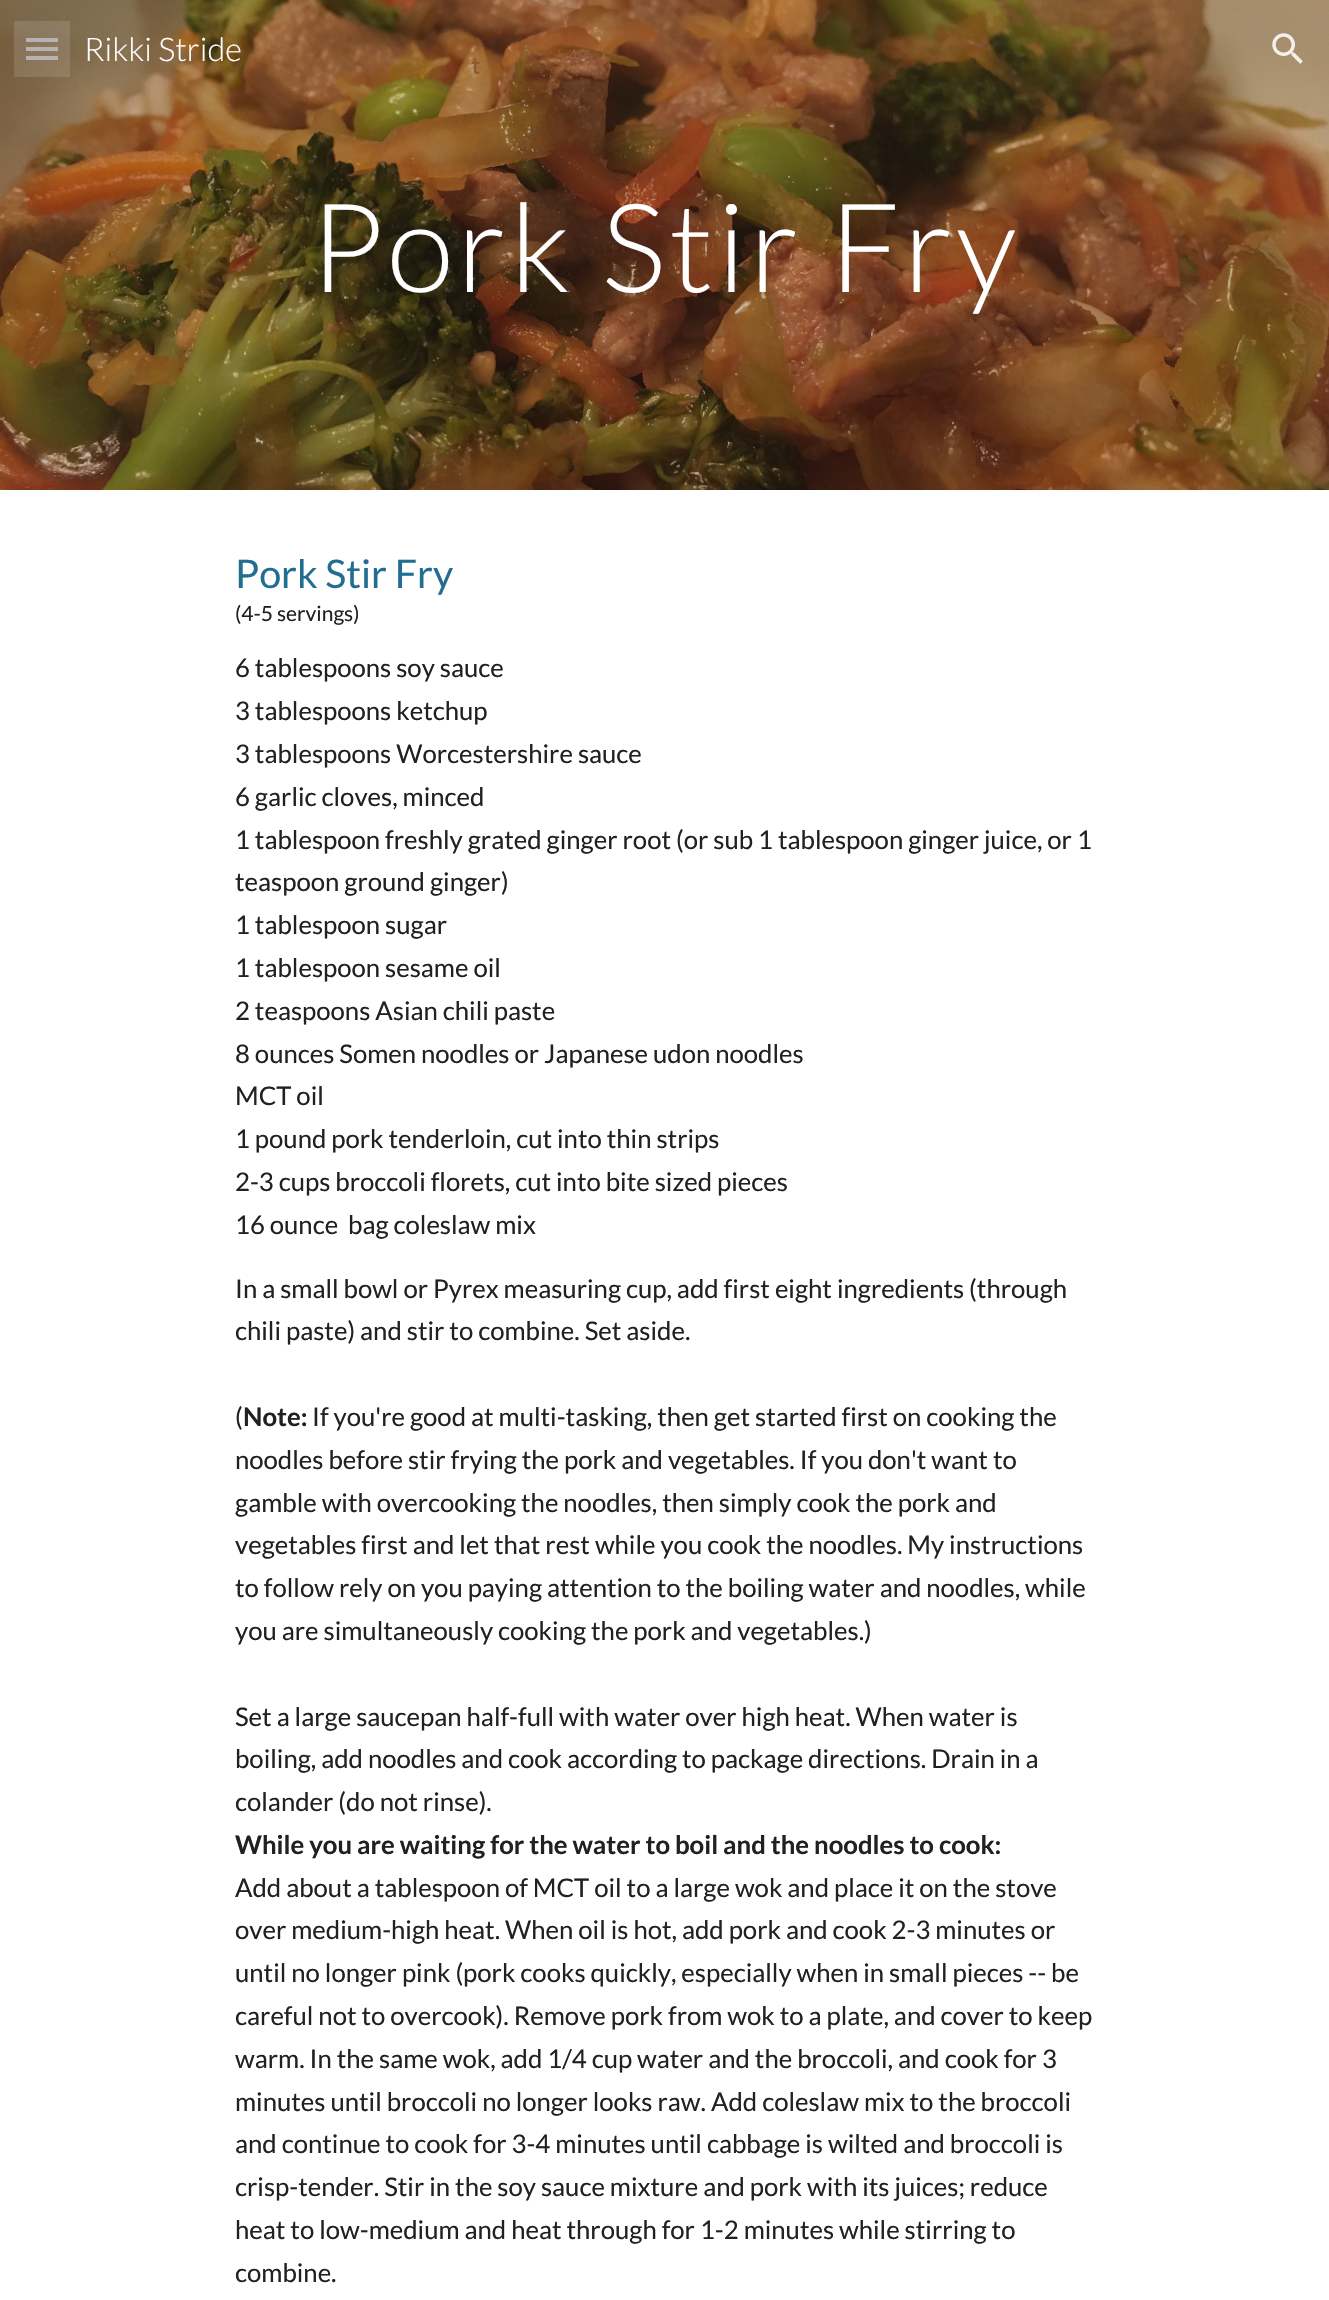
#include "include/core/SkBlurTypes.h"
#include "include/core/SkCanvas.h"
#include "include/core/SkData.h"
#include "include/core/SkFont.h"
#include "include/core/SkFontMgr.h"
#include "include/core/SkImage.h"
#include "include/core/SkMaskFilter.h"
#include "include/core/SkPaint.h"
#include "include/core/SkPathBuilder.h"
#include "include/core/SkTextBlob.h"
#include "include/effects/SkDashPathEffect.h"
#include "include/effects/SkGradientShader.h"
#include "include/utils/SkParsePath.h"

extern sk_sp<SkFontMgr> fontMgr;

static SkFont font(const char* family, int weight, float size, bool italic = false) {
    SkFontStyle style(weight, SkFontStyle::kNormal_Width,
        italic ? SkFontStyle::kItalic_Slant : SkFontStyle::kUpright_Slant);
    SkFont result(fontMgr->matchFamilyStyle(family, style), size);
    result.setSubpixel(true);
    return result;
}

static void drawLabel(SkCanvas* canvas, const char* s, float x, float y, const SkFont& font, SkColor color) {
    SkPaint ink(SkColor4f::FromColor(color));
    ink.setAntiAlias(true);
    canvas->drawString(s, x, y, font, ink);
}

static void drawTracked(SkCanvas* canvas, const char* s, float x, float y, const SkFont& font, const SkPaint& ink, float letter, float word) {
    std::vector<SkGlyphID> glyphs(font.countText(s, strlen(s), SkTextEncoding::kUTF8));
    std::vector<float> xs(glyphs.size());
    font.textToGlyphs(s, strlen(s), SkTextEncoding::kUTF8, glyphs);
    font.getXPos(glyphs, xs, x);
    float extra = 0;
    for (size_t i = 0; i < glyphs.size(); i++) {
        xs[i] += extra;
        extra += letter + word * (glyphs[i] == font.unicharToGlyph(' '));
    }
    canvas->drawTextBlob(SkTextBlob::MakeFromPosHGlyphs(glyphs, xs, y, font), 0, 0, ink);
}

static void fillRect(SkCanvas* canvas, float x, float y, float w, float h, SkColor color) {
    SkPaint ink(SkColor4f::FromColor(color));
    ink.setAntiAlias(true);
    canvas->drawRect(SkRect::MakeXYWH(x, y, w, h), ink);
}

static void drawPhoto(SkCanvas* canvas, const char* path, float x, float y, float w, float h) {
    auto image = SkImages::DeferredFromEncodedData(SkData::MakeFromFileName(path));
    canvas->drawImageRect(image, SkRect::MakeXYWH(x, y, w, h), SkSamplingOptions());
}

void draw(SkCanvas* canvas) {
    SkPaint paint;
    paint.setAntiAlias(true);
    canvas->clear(0xFFFFFFFF);
    drawPhoto(canvas, "assets/img2.png", 0, 0, 1329, 490);
    fillRect(canvas, 26, 38, 32, 4, 0xE0B2B2B2);
    fillRect(canvas, 26, 47, 32, 4, 0xE0B2B2B2);
    fillRect(canvas, 26, 56, 32, 4, 0xE0B2B2B2);
    fillRect(canvas, 14, 21, 56, 56, 0x1FFFFFFF);
    SkFont font1 = font("Lato", 300, 32.5f);
    drawLabel(canvas, "Rikki Stride", 84, 61, font1, 0xFFFFFFFF);
    drawPhoto(canvas, "assets/img1.png", 1272, 33, 31, 31);
    SkFont font2 = font("Lato", 300, 123.5f);
    paint.setColor(0xFFFFFFFF);
    drawTracked(canvas, "Pork Stir Fry", 310, 292, font2, paint, 3.5f, 0);
    SkFont font3 = font("Lato", 400, 39.5f);
    drawLabel(canvas, "Pork Stir Fry", 235, 588, font3, 0xFF226E93);
    SkFont font4 = font("Lato", 400, 21);
    drawLabel(canvas, "(4-5 servings)", 235, 621, font4, 0xFF212121);
    SkFont font5 = font("Lato", 400, 25.7f);
    drawLabel(canvas, "6 tablespoons soy sauce", 235, 677, font5, 0xFF212121);
    drawLabel(canvas, "3 tablespoons ketchup", 235, 720, font5, 0xFF212121);
    drawLabel(canvas, "3 tablespoons Worcestershire sauce", 235, 763, font5, 0xFF212121);
    drawLabel(canvas, "6 garlic cloves, minced", 235, 806, font5, 0xFF212121);
    drawLabel(canvas, "1 tablespoon freshly grated ginger root (or sub 1 tablespoon ginger juice, or 1", 235, 849, font5, 0xFF212121);
    drawLabel(canvas, "teaspoon ground ginger)", 235, 891, font5, 0xFF212121);
    drawLabel(canvas, "1 tablespoon sugar", 235, 934, font5, 0xFF212121);
    drawLabel(canvas, "1 tablespoon sesame oil", 235, 977, font5, 0xFF212121);
    drawLabel(canvas, "2 teaspoons Asian chili paste", 235, 1020, font5, 0xFF212121);
    drawLabel(canvas, "8 ounces Somen noodles or Japanese udon noodles", 235, 1063, font5, 0xFF212121);
    drawLabel(canvas, "MCT oil", 235, 1105, font5, 0xFF212121);
    drawLabel(canvas, "1 pound pork tenderloin, cut into thin strips", 235, 1148, font5, 0xFF212121);
    drawLabel(canvas, "2-3 cups broccoli florets, cut into bite sized pieces", 235, 1191, font5, 0xFF212121);
    drawLabel(canvas, "16 ounce  bag coleslaw mix", 235, 1234, font5, 0xFF212121);
    drawLabel(canvas, "In a small bowl or Pyrex measuring cup, add first eight ingredients (through", 235, 1298, font5, 0xFF212121);
    drawLabel(canvas, "chili paste) and stir to combine. Set aside.", 235, 1340, font5, 0xFF212121);
    drawLabel(canvas, "(", 235, 1426, font5, 0xFF212121);
    SkFont font6 = font("Lato", 700, 25.7f);
    drawLabel(canvas, "Note:", 243, 1426, font6, 0xFF212121);
    drawLabel(canvas, "If you're good at multi-tasking, then get started first on cooking the", 312, 1426, font5, 0xFF212121);
    drawLabel(canvas, "noodles before stir frying the pork and vegetables. If you don't want to", 235, 1469, font5, 0xFF212121);
    drawLabel(canvas, "gamble with overcooking the noodles, then simply cook the pork and", 235, 1512, font5, 0xFF212121);
    drawLabel(canvas, "vegetables first and let that rest while you cook the noodles. My instructions", 235, 1554, font5, 0xFF212121);
    drawLabel(canvas, "to follow rely on you paying attention to the boiling water and noodles, while", 235, 1597, font5, 0xFF212121);
    drawLabel(canvas, "you are simultaneously cooking the pork and vegetables.)", 235, 1640, font5, 0xFF212121);
    drawLabel(canvas, "Set a large saucepan half-full with water over high heat. When water is", 235, 1726, font5, 0xFF212121);
    drawLabel(canvas, "boiling, add noodles and cook according to package directions. Drain in a", 235, 1768, font5, 0xFF212121);
    drawLabel(canvas, "colander (do not rinse).", 235, 1811, font5, 0xFF212121);
    drawLabel(canvas, "While you are waiting for the water to boil and the noodles to cook:", 235, 1854, font6, 0xFF212121);
    drawLabel(canvas, "Add about a tablespoon of MCT oil to a large wok and place it on the stove", 235, 1897, font5, 0xFF212121);
    drawLabel(canvas, "over medium-high heat. When oil is hot, add pork and cook 2-3 minutes or", 235, 1939, font5, 0xFF212121);
    drawLabel(canvas, "until no longer pink (pork cooks quickly, especially when in small pieces -- be", 235, 1982, font5, 0xFF212121);
    drawLabel(canvas, "careful not to overcook). Remove pork from wok to a plate, and cover to keep", 235, 2025, font5, 0xFF212121);
    drawLabel(canvas, "warm. In the same wok, add 1/4 cup water and the broccoli, and cook for 3", 235, 2068, font5, 0xFF212121);
    drawLabel(canvas, "minutes until broccoli no longer looks raw. Add coleslaw mix to the broccoli", 235, 2111, font5, 0xFF212121);
    drawLabel(canvas, "and continue to cook for 3-4 minutes until cabbage is wilted and broccoli is", 235, 2153, font5, 0xFF212121);
    drawLabel(canvas, "crisp-tender. Stir in the soy sauce mixture and pork with its juices; reduce", 235, 2196, font5, 0xFF212121);
    drawLabel(canvas, "heat to low-medium and heat through for 1-2 minutes while stirring to", 235, 2239, font5, 0xFF212121);
    drawLabel(canvas, "combine.", 235, 2282, font5, 0xFF212121);
    SkFont font7 = font("Google Sans", 500, 24);
    drawLabel(canvas, "t", 471, 74, font7, 0xFF8F5B2F);
}
